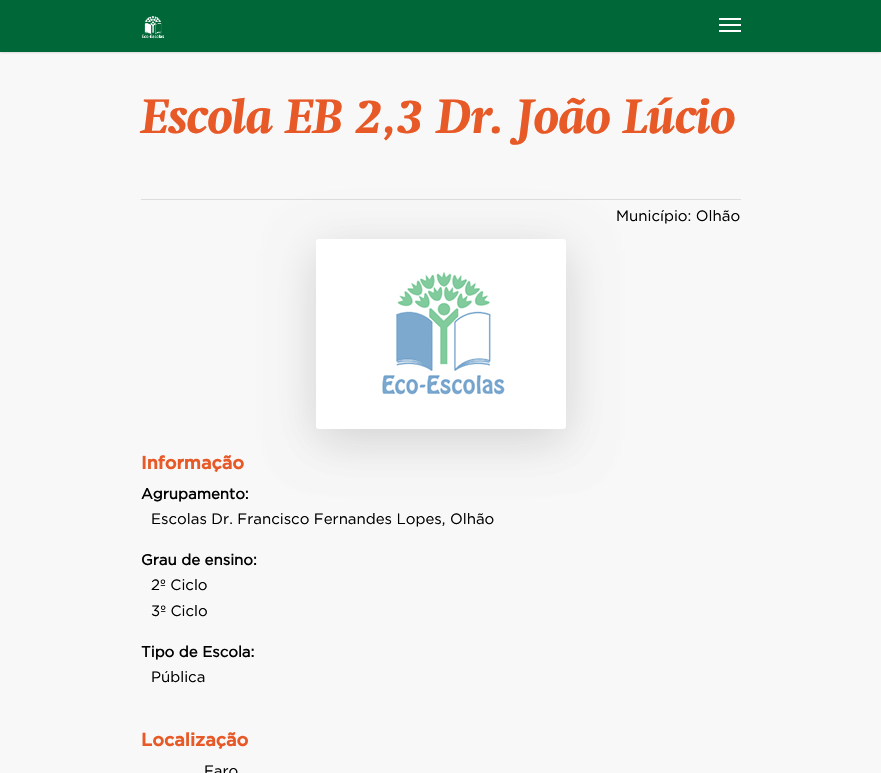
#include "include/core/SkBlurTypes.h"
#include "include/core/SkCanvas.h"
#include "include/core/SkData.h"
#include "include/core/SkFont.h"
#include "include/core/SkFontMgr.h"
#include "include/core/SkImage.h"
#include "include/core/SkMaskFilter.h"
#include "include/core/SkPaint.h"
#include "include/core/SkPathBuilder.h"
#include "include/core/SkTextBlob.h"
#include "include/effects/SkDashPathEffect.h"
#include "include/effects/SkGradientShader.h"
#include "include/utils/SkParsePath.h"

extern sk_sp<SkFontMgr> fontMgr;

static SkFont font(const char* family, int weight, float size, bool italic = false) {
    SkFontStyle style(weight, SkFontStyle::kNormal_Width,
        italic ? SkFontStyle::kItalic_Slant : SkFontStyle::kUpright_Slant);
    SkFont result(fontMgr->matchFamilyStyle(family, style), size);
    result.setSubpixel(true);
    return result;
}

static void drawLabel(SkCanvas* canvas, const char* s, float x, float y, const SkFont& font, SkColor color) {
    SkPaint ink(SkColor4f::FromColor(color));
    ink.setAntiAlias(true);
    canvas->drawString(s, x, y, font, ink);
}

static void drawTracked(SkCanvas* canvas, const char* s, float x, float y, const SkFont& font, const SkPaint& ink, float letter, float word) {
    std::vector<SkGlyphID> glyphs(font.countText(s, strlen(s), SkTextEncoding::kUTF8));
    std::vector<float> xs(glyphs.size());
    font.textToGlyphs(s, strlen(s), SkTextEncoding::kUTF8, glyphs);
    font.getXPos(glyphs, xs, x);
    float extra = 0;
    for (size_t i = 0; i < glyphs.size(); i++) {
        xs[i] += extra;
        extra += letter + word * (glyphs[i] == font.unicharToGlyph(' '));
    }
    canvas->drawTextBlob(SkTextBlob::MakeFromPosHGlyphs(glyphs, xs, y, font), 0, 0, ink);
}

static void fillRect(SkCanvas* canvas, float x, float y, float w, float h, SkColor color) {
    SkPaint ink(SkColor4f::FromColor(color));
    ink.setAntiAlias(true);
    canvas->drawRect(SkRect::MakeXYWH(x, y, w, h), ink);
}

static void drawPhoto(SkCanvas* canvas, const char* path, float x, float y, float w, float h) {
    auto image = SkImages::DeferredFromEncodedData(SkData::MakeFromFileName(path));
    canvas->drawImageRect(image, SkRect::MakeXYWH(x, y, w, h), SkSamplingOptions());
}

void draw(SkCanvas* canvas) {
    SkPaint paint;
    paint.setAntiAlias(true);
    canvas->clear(0xFF006838);
    fillRect(canvas, 0, 52, 881, 721, 0xFFF8F8F8);
    canvas->save();
    canvas->clipRect(SkRect::MakeXYWH(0, 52, 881, 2));
    paint.setColor(0x38000000);
    paint.setMaskFilter(SkMaskFilter::MakeBlur(kNormal_SkBlurStyle, 1.5f));
    canvas->drawRect(SkRect::MakeXYWH(0, 0, 881, 52), paint);
    paint.setMaskFilter(nullptr);
    canvas->restore();
    drawPhoto(canvas, "assets/img1.png", 141, 15, 24, 24);
    fillRect(canvas, 719, 18, 22, 2, 0xFFFFFFFF);
    fillRect(canvas, 719, 30, 22, 2, 0xFFFFFFFF);
    fillRect(canvas, 719, 24, 22, 2, 0xFFFFFFFF);
    fillRect(canvas, 141, 199, 600, 1, 0xFFDDDDDD);
    SkFont font1 = font("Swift", 800, 48, true);
    paint.setColor(0xFFE75A28);
    drawTracked(canvas, "Escola EB 2,3 Dr. João Lúcio", 141, 133, font1, paint, -1, 0);
    SkFont font2 = font("Gotham", 400, 15);
    drawLabel(canvas, "Município: Olhão", 616, 221, font2, 0xFF000000);
    paint.setColor(0x14000000);
    paint.setMaskFilter(SkMaskFilter::MakeBlur(kNormal_SkBlurStyle, 22.5f));
    canvas->drawRoundRect(SkRect::MakeXYWH(316, 252, 250, 190), 3, 3, paint);
    paint.setMaskFilter(nullptr);
    paint.setMaskFilter(SkMaskFilter::MakeBlur(kNormal_SkBlurStyle, 25));
    canvas->drawRoundRect(SkRect::MakeXYWH(316, 249, 250, 190), 3, 3, paint);
    paint.setMaskFilter(nullptr);
    drawPhoto(canvas, "assets/img2.png", 316, 239, 250, 190);
    SkFont font3 = font("Gotham", 700, 18);
    drawLabel(canvas, "Informação", 141, 469, font3, 0xFFE75A28);
    SkFont font4 = font("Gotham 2", 700, 15);
    drawLabel(canvas, "Agrupamento:", 141, 499, font4, 0xFF000000);
    drawLabel(canvas, "Escolas Dr. Francisco Fernandes Lopes, Olhão", 151, 524, font2, 0xFF000000);
    drawLabel(canvas, "Grau de ensino:", 141, 565, font4, 0xFF000000);
    drawLabel(canvas, "2º Ciclo", 151, 590, font2, 0xFF000000);
    drawLabel(canvas, "3º Ciclo", 151, 616, font2, 0xFF000000);
    drawLabel(canvas, "Tipo de Escola:", 141, 657, font4, 0xFF000000);
    drawLabel(canvas, "Pública", 151, 682, font2, 0xFF000000);
    drawLabel(canvas, "Localização", 141, 746, font3, 0xFFE75A28);
    drawLabel(canvas, "Faro", 204, 776, font2, 0xFF000000);
}
